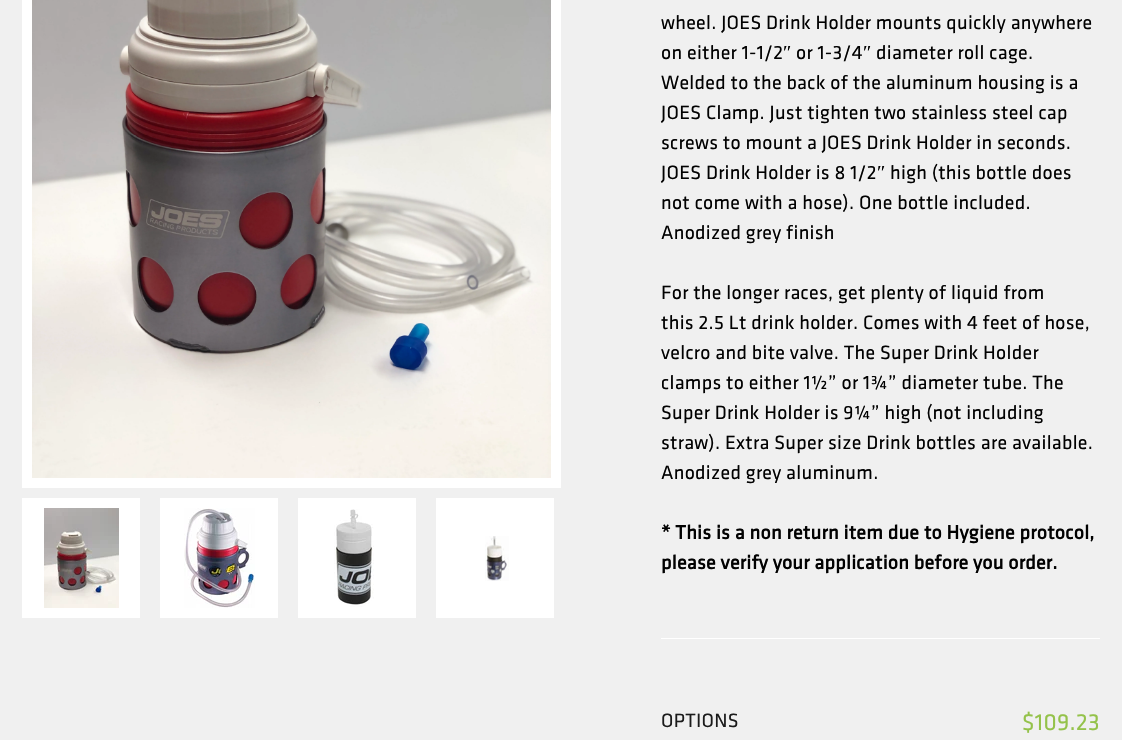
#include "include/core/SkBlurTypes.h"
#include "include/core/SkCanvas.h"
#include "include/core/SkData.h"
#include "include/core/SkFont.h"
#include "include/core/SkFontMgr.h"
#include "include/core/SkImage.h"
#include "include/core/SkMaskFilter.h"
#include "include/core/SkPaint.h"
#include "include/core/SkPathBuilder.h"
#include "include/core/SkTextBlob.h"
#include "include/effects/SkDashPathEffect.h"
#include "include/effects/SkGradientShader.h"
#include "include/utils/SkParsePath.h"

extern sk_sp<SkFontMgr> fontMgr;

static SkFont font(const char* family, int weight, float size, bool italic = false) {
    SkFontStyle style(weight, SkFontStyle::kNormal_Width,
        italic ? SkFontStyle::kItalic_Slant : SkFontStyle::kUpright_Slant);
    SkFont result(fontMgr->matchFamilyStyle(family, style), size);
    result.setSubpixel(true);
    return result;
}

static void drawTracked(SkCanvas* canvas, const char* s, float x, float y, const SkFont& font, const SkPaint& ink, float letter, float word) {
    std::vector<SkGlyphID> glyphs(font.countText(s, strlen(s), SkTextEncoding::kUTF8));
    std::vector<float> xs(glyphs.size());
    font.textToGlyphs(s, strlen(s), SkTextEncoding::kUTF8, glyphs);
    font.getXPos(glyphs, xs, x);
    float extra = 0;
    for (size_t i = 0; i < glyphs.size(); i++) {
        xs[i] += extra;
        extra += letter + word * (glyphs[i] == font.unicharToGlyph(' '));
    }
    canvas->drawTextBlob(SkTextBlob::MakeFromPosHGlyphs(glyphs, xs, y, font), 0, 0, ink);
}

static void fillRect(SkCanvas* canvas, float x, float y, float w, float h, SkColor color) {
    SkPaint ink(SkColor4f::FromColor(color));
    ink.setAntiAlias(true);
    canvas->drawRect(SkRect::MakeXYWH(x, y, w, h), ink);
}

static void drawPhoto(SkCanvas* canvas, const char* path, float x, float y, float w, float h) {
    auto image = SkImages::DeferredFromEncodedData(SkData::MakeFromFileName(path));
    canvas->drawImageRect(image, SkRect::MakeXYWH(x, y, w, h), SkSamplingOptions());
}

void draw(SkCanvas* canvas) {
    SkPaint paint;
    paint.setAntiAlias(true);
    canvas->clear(0xFFF0F0F0);
    fillRect(canvas, 22, 0, 539, 488, 0xFFFFFFFF);
    drawPhoto(canvas, "assets/img1.png", 32, 0, 519, 478);
    fillRect(canvas, 22, 498, 118, 120, 0xFFFFFFFF);
    drawPhoto(canvas, "assets/img2.png", 44, 508, 75, 100);
    fillRect(canvas, 160, 498, 118, 120, 0xFFFFFFFF);
    drawPhoto(canvas, "assets/img3.png", 184, 508, 71, 100);
    fillRect(canvas, 298, 498, 118, 120, 0xFFFFFFFF);
    drawPhoto(canvas, "assets/img4.png", 334, 509, 40, 98);
    fillRect(canvas, 436, 498, 118, 120, 0xFFFFFFFF);
    drawPhoto(canvas, "assets/img5.png", 485, 536, 24, 45);
    fillRect(canvas, 661, 638, 439, 1, 0xFFFFFFFF);
    SkFont font1 = font("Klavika", 400, 20);
    paint.setColor(0xFF010101);
    drawTracked(canvas, "wheel. JOES Drink Holder mounts quickly anywhere", 661, 29, font1, paint, 0.3f, 0);
    drawTracked(canvas, "on either 1-1/2", 661, 59, font1, paint, 0.3f, 0);
    SkFont font2 = font("Liberation Serif", 400, 20);
    drawTracked(canvas, "″", 783, 59, font2, paint, 0.3f, 0);
    drawTracked(canvas, "or 1-3/4", 796, 59, font1, paint, 0.3f, 0);
    drawTracked(canvas, "″", 863, 59, font2, paint, 0.3f, 0);
    drawTracked(canvas, "diameter roll cage.", 876, 59, font1, paint, 0.3f, 0);
    drawTracked(canvas, "Welded to the back of the aluminum housing is a", 661, 89, font1, paint, 0.3f, 0);
    drawTracked(canvas, "JOES Clamp. Just tighten two stainless steel cap", 661, 119, font1, paint, 0.3f, 0);
    drawTracked(canvas, "screws to mount a JOES Drink Holder in seconds.", 661, 149, font1, paint, 0.3f, 0);
    drawTracked(canvas, "JOES Drink Holder is 8 1/2", 661, 179, font1, paint, 0.3f, 0);
    drawTracked(canvas, "″", 877, 179, font2, paint, 0.3f, 0);
    drawTracked(canvas, "high (this bottle does", 890, 179, font1, paint, 0.3f, 0);
    drawTracked(canvas, "not come with a hose). One bottle included.", 661, 209, font1, paint, 0.3f, 0);
    drawTracked(canvas, "Anodized grey finish", 661, 239, font1, paint, 0.3f, 0);
    drawTracked(canvas, "For the longer races, get plenty of liquid from", 661, 299, font1, paint, 0.3f, 0);
    drawTracked(canvas, "this 2.5 Lt drink holder. Comes with 4 feet of hose,", 661, 329, font1, paint, 0.3f, 0);
    drawTracked(canvas, "velcro and bite valve. The Super Drink Holder", 661, 359, font1, paint, 0.3f, 0);
    drawTracked(canvas, "clamps to either 1½” or 1¾” diameter tube. The", 661, 389, font1, paint, 0.3f, 0);
    drawTracked(canvas, "Super Drink Holder is 9¼” high (not including", 661, 419, font1, paint, 0.3f, 0);
    drawTracked(canvas, "straw). Extra Super size Drink bottles are available.", 661, 449, font1, paint, 0.3f, 0);
    drawTracked(canvas, "Anodized grey aluminum.", 661, 479, font1, paint, 0.3f, 0);
    SkFont font3 = font("Klavika", 700, 20);
    drawTracked(canvas, "* This is a non return item due to Hygiene protocol,", 661, 539, font3, paint, 0.3f, 0);
    drawTracked(canvas, "please verify your application before you order.", 661, 569, font3, paint, 0.3f, 0);
    paint.setColor(0xFF1B1B1B);
    drawTracked(canvas, "OPTIONS", 661, 727, font1, paint, 0.3f, 0);
    SkFont font4 = font("Klavika", 400, 24);
    paint.setColor(0xFF94C24A);
    drawTracked(canvas, "$109.23", 1022, 730, font4, paint, 0.3f, 0);
}
